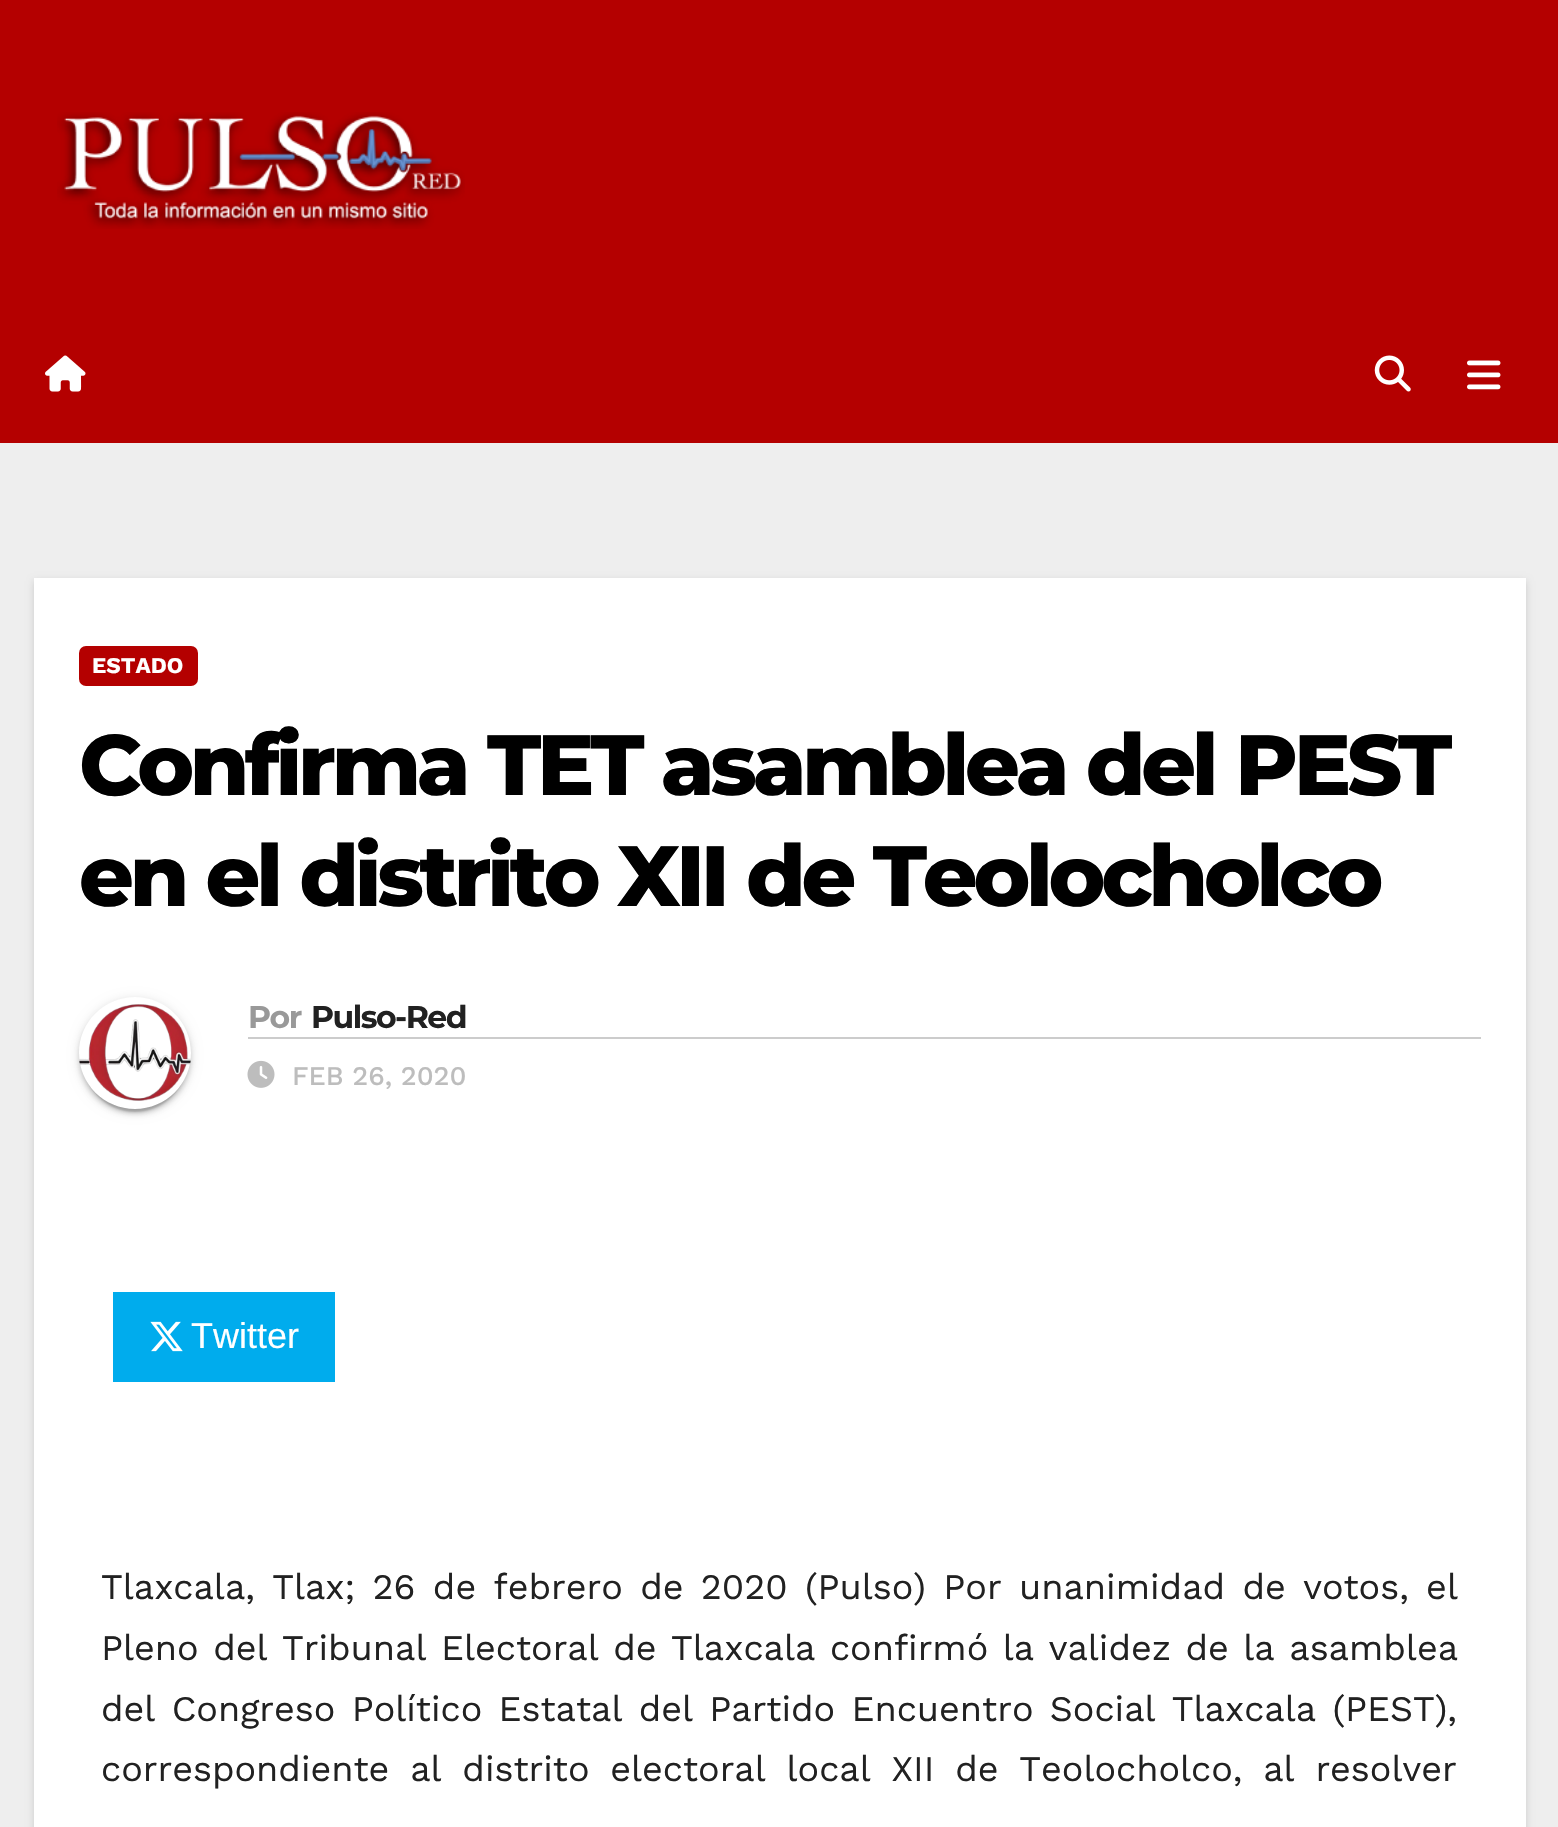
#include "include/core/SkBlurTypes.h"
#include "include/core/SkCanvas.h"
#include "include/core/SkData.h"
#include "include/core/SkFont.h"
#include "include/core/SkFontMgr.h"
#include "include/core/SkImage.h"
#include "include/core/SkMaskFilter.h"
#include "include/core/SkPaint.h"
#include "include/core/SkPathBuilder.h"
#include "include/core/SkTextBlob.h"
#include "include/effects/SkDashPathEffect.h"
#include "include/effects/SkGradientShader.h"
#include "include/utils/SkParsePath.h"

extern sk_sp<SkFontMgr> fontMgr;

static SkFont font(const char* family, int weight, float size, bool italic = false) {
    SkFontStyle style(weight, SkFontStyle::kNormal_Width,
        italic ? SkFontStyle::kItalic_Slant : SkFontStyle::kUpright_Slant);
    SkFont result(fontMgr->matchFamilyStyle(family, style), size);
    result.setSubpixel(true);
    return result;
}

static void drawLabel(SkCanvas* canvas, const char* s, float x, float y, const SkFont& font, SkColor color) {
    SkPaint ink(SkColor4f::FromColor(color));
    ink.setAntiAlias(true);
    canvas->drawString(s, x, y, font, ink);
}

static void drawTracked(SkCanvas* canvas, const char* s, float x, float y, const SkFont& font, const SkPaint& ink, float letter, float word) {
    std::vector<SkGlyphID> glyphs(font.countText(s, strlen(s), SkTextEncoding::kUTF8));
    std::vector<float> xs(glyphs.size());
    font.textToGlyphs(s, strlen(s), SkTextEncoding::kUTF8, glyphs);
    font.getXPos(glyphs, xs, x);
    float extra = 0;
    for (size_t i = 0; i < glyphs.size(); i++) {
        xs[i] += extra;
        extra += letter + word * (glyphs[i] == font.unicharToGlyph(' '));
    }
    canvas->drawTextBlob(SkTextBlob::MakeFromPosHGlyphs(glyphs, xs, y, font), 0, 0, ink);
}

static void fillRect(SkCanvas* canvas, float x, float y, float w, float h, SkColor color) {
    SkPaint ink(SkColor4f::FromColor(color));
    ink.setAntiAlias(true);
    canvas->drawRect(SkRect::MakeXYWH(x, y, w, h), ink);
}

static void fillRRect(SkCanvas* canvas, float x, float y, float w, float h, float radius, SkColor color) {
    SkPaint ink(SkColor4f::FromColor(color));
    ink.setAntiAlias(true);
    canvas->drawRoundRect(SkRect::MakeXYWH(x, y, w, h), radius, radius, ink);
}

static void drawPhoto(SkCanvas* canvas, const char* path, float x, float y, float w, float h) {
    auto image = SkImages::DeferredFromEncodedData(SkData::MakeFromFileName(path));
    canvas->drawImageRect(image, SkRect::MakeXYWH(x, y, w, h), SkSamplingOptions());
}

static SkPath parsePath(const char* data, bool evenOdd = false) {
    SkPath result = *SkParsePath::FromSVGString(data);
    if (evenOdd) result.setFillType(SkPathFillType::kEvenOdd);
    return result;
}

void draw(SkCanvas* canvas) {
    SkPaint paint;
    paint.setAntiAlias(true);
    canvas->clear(0xFFEEEEEE);
    fillRect(canvas, 0, 0, 1558, 443, 0xFFB40000);
    drawPhoto(canvas, "assets/img1.png", 57, 112, 408, 117);
    drawPhoto(canvas, "assets/img2.png", 45, 355, 41, 37);
    drawPhoto(canvas, "assets/img3.png", 1374, 355, 37, 37);
    drawPhoto(canvas, "assets/img4.png", 1467, 360, 34, 30);
    paint.setColor(0x26000000);
    paint.setMaskFilter(SkMaskFilter::MakeBlur(kNormal_SkBlurStyle, 3.5f));
    canvas->drawRect(SkRect::MakeXYWH(34, 581, 1492, 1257), paint);
    paint.setMaskFilter(nullptr);
    fillRect(canvas, 34, 578, 1492, 1249, 0xFFFFFFFF);
    fillRRect(canvas, 79, 646, 119, 40, 7, 0xFFB40000);
    SkFont font1 = font("Work Sans", 700, 22.5f);
    drawLabel(canvas, "ESTADO", 92, 673, font1, 0xFFFFFFFF);
    SkFont font2 = font("Montserrat", 800, 85.5f);
    paint.setColor(0xFF000000);
    drawTracked(canvas, "Confirma TET asamblea del PEST", 79, 795, font2, paint, -4.25f, 0);
    drawTracked(canvas, "en el distrito XII de Teolocholco", 79, 906, font2, paint, -4.25f, 0);
    canvas->save();
    canvas->clipPath(parsePath("M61 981H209V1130H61ZM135 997C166 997 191 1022 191 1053C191 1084 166 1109 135 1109C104 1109 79 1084 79 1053C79 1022 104 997 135 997Z", true), true);
    paint.setColor(0x1F000000);
    paint.setMaskFilter(SkMaskFilter::MakeBlur(kNormal_SkBlurStyle, 5.5f));
    canvas->drawRoundRect(SkRect::MakeXYWH(79, 999, 112, 113), 56, 56, paint);
    paint.setMaskFilter(nullptr);
    canvas->restore();
    canvas->save();
    canvas->clipPath(parsePath("M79 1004H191V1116H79ZM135 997C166 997 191 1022 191 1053C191 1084 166 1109 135 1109C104 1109 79 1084 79 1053C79 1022 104 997 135 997Z", true), true);
    paint.setColor(0x33000000);
    paint.setMaskFilter(SkMaskFilter::MakeBlur(kNormal_SkBlurStyle, 1));
    canvas->drawRoundRect(SkRect::MakeXYWH(83, 1008, 104, 104), 52, 52, paint);
    paint.setMaskFilter(nullptr);
    canvas->restore();
    canvas->save();
    canvas->clipPath(parsePath("M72 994H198V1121H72ZM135 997C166 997 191 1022 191 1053C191 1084 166 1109 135 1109C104 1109 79 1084 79 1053C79 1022 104 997 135 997Z", true), true);
    paint.setColor(0x24000000);
    paint.setMaskFilter(SkMaskFilter::MakeBlur(kNormal_SkBlurStyle, 2));
    canvas->drawRoundRect(SkRect::MakeXYWH(79, 1001, 112, 113), 56, 56, paint);
    paint.setMaskFilter(nullptr);
    canvas->restore();
    drawPhoto(canvas, "assets/img5.png", 79, 1004, 112, 97);
    fillRect(canvas, 248, 1037, 1233, 2, 0xFFCCCCCC);
    SkFont font3 = font("Montserrat", 700, 31.5f);
    paint.setColor(0xFF999999);
    drawTracked(canvas, "Por", 248, 1028, font3, paint, -1.5f, 0);
    paint.setColor(0xFF212121);
    drawTracked(canvas, "Pulso-Red", 311, 1028, font3, paint, -1.5f, 0);
    drawPhoto(canvas, "assets/img6.png", 247, 1060, 28, 28);
    SkFont font4 = font("Work Sans", 500, 27);
    drawLabel(canvas, "FEB 26, 2020", 292, 1085, font4, 0xFFBDBDBD);
    fillRect(canvas, 113, 1292, 222, 90, 0xFF00ACED);
    drawPhoto(canvas, "assets/img7.png", 150, 1321, 33, 31);
    SkFont font5 = font("Liberation Sans", 400, 36);
    drawLabel(canvas, "Twitter", 191, 1348, font5, 0xFFFFFFFF);
    SkFont font6 = font("Work Sans", 400, 36);
    drawTracked(canvas, "Tlaxcala, Tlax; 26 de febrero de 2020 (Pulso) Por unanimidad de votos, el", 101, 1599, font6, paint, 0, 5.1f);
    drawTracked(canvas, "Pleno del Tribunal Electoral de Tlaxcala confirmó la validez de la asamblea", 101, 1660, font6, paint, 0, 2.25f);
    drawTracked(canvas, "del Congreso Político Estatal del Partido Encuentro Social Tlaxcala (PEST),", 101, 1721, font6, paint, 0, 4);
    drawTracked(canvas, "correspondiente al distrito electoral local XII de Teolocholco, al resolver", 101, 1781, font6, paint, 0, 8.5f);
}
